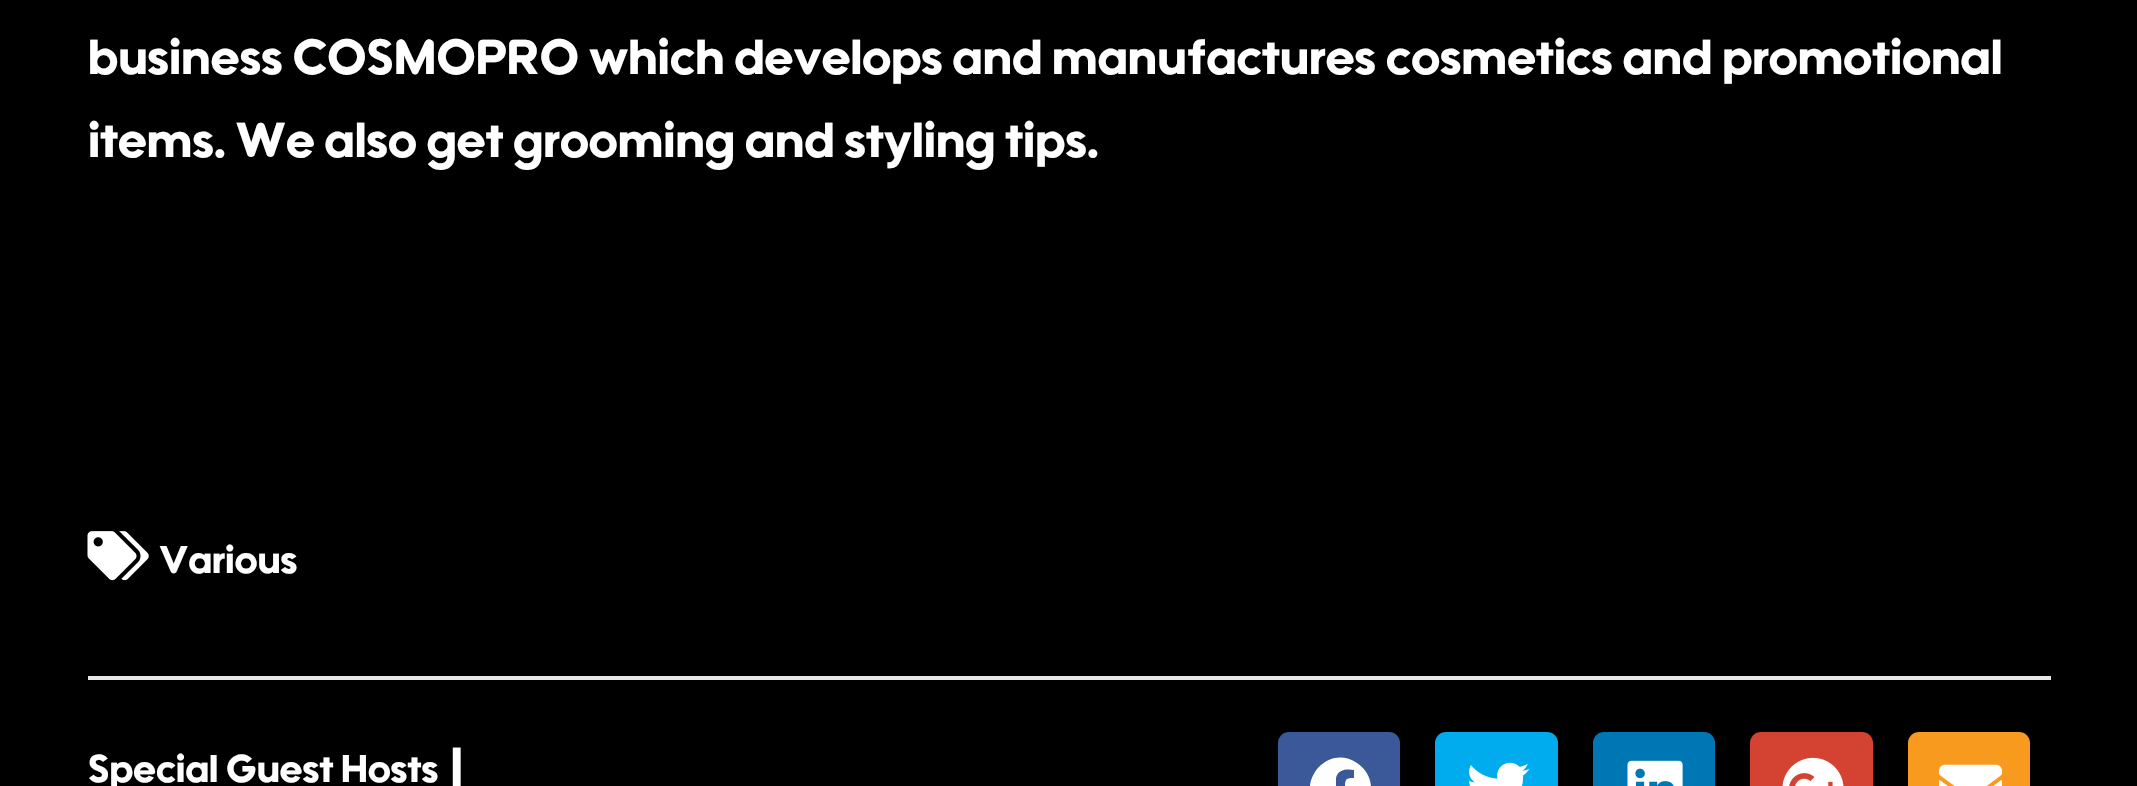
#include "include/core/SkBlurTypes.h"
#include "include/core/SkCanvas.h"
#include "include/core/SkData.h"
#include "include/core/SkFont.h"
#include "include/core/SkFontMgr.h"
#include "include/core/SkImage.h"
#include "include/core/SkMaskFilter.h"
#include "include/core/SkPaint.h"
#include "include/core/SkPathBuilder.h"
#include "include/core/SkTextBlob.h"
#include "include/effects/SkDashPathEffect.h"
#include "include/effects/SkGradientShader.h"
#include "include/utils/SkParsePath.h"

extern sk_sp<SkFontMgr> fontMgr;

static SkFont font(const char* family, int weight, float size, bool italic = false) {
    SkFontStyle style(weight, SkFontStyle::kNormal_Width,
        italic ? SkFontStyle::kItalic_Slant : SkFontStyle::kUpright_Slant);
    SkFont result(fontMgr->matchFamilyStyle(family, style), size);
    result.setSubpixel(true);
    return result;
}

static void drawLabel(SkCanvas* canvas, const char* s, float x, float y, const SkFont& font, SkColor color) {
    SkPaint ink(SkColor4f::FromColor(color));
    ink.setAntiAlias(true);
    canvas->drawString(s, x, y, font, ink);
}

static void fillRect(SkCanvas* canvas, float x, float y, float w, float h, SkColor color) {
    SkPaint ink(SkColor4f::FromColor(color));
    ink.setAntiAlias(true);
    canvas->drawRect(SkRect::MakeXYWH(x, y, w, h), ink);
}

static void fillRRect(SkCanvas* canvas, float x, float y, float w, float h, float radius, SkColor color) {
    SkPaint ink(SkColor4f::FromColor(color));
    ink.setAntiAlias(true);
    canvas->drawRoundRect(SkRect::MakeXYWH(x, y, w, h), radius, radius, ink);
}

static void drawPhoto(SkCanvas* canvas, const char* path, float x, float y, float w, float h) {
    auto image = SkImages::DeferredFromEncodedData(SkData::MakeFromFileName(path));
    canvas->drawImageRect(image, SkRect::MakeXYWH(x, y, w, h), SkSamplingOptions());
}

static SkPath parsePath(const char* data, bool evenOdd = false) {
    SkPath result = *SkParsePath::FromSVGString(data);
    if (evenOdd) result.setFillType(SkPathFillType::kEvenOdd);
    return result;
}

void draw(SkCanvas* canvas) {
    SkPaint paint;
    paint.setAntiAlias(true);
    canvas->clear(0xFF000000);
    SkFont font1 = font("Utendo", 700, 49);
    drawLabel(canvas, "business COSMOPRO which develops and manufactures cosmetics and promotional", 88, 74, font1, 0xFFFFFFFF);
    drawLabel(canvas, "items. We also get grooming and styling tips.", 88, 157, font1, 0xFFFFFFFF);
    drawPhoto(canvas, "assets/img1.png", 87, 531, 62, 50);
    SkFont font2 = font("Utendo", 700, 38.5f);
    drawLabel(canvas, "Various", 159, 573, font2, 0xFFFFFFFF);
    fillRect(canvas, 88, 676, 1963, 4, 0xFFE7E7E7);
    drawLabel(canvas, "Special Guest Hosts", 88, 782, font2, 0xFFFFFFFF);
    drawLabel(canvas, "|", 448, 782, font1, 0xFFFFFFFF);
    fillRRect(canvas, 1278, 732, 122, 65, 11, 0xFF3B5999);
    paint.setColor(0xFFFFFFFF);
    canvas->drawPath(parsePath("M1371 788C1371 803 1360 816 1345 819V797H1352L1354 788H1345C1345 780 1345 778 1354 778V770C1347 769 1338 769 1336 778V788H1328V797H1336V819C1329 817 1322 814 1317 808C1295 782 1328 743 1357 763C1366 769 1371 778 1371 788Z"), paint);
    fillRRect(canvas, 1435, 732, 123, 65, 11, 0xFF00ACED);
    drawPhoto(canvas, "assets/img2.png", 1469, 762, 61, 24);
    fillRRect(canvas, 1593, 732, 122, 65, 11, 0xFF0077B5);
    drawPhoto(canvas, "assets/img3.png", 1627, 760, 56, 26);
    fillRRect(canvas, 1750, 732, 123, 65, 11, 0xFFD44332);
    drawPhoto(canvas, "assets/img4.png", 1782, 757, 62, 29);
    fillRRect(canvas, 1908, 732, 122, 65, 11, 0xFFF89A1E);
    drawPhoto(canvas, "assets/img5.png", 1939, 764, 63, 22);
}
